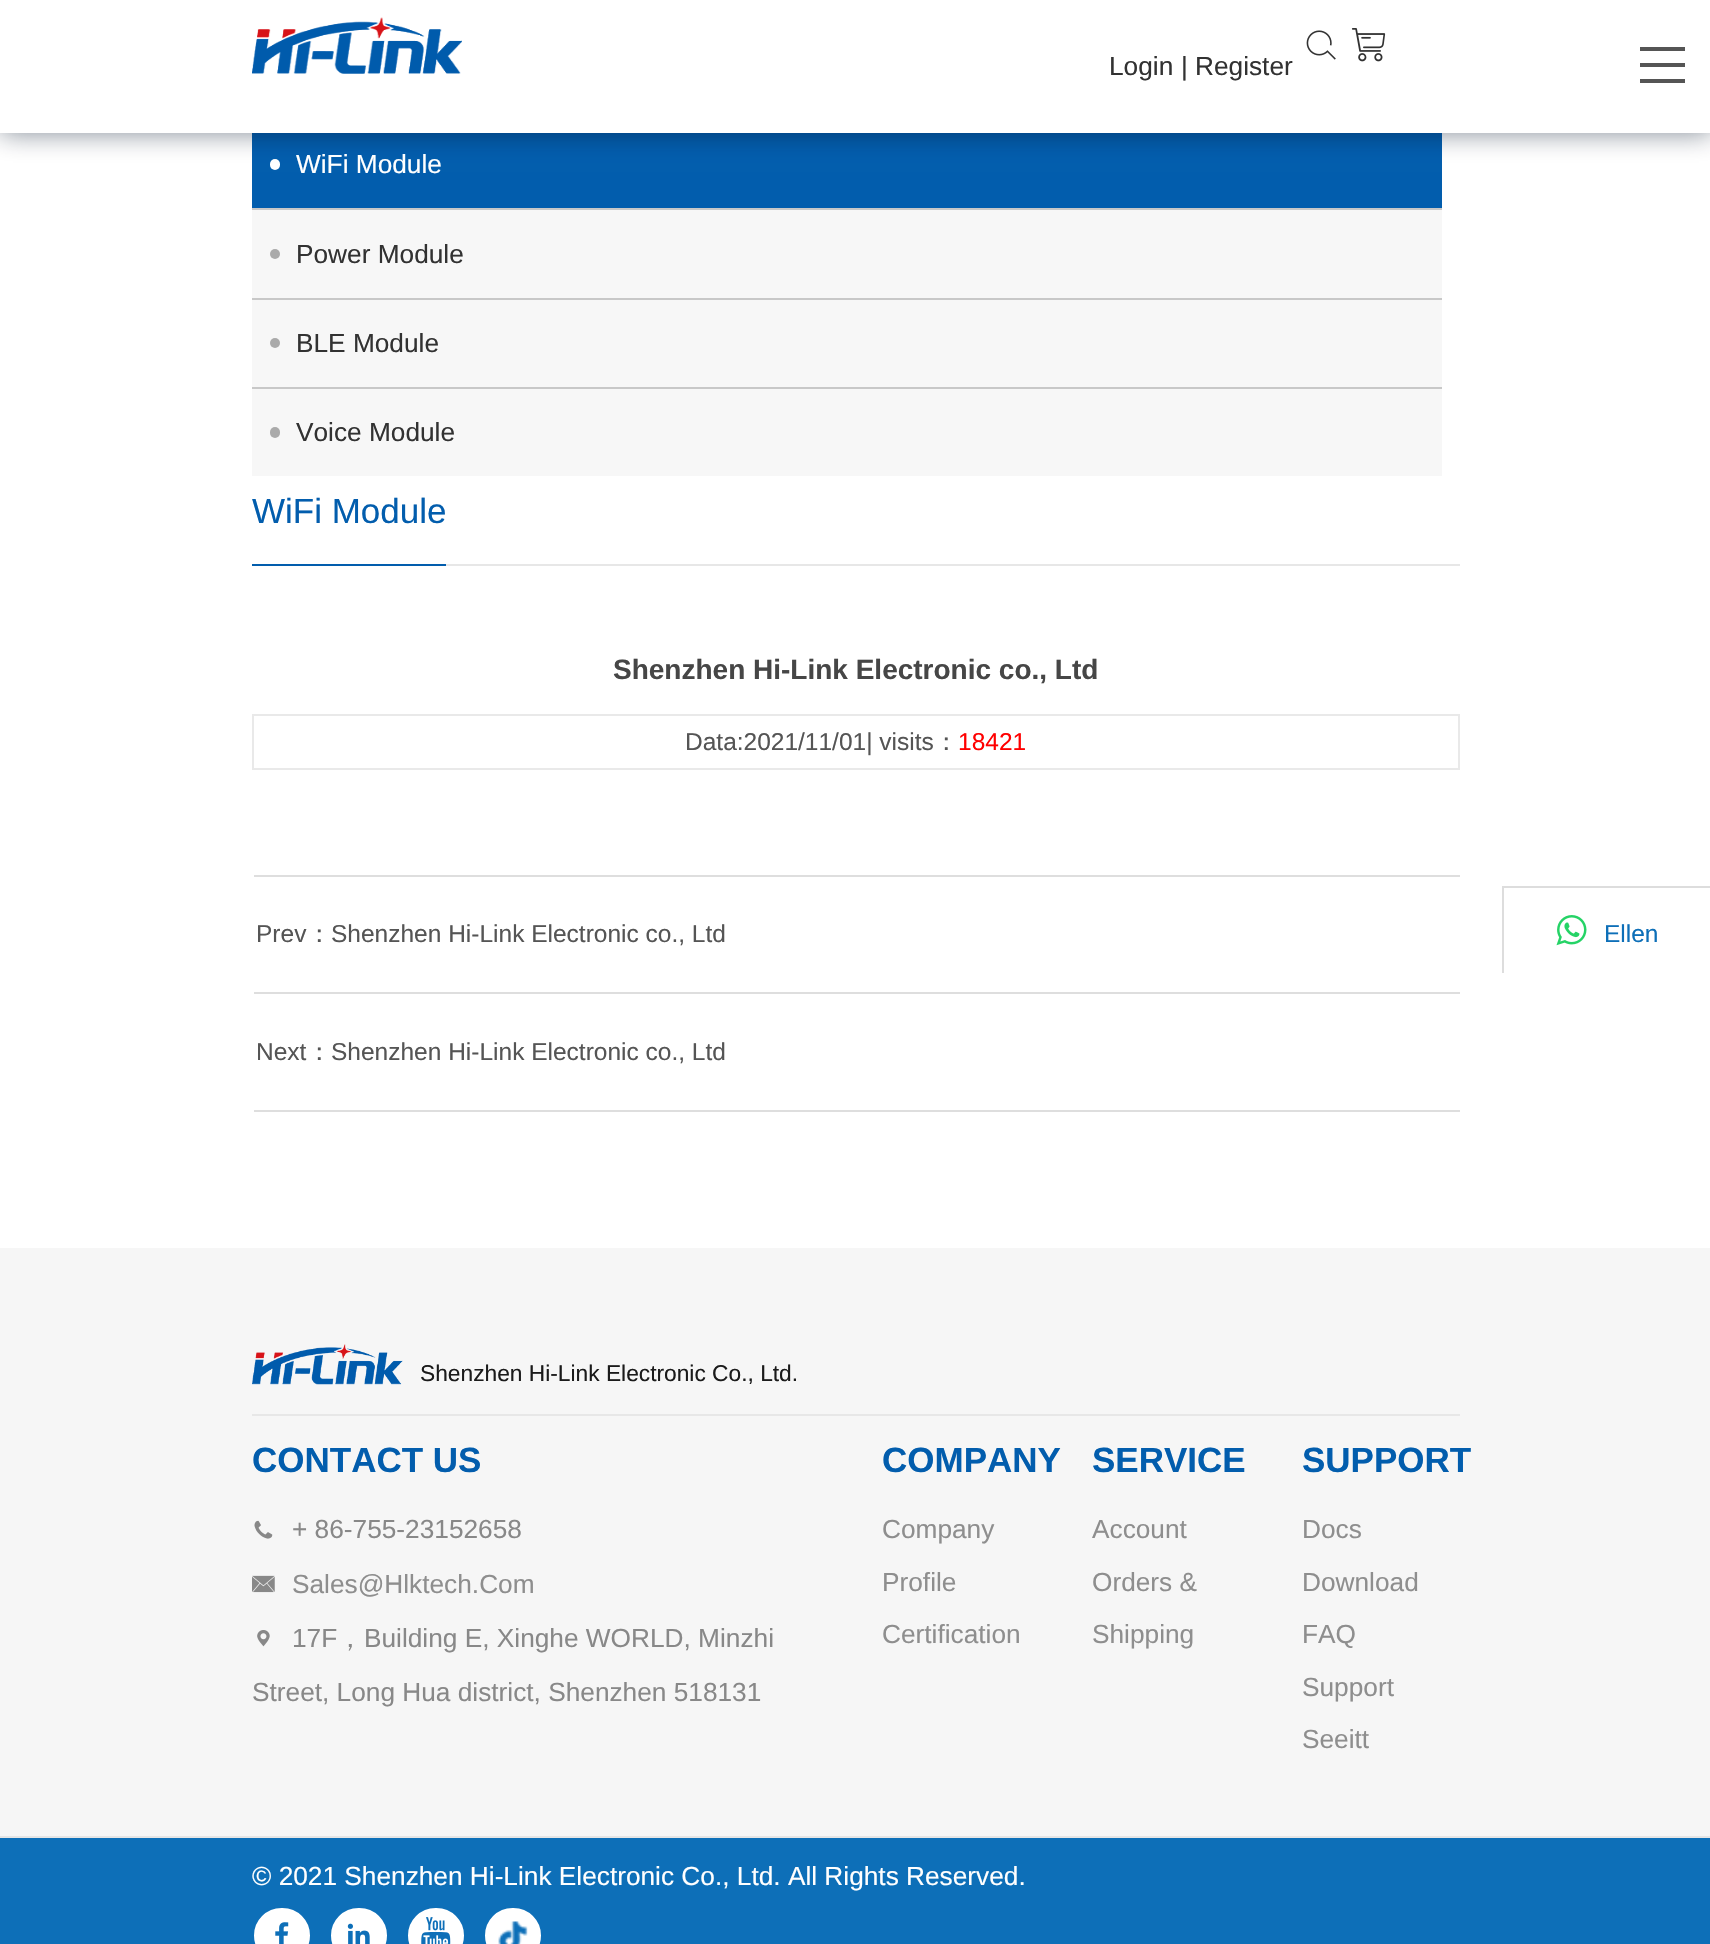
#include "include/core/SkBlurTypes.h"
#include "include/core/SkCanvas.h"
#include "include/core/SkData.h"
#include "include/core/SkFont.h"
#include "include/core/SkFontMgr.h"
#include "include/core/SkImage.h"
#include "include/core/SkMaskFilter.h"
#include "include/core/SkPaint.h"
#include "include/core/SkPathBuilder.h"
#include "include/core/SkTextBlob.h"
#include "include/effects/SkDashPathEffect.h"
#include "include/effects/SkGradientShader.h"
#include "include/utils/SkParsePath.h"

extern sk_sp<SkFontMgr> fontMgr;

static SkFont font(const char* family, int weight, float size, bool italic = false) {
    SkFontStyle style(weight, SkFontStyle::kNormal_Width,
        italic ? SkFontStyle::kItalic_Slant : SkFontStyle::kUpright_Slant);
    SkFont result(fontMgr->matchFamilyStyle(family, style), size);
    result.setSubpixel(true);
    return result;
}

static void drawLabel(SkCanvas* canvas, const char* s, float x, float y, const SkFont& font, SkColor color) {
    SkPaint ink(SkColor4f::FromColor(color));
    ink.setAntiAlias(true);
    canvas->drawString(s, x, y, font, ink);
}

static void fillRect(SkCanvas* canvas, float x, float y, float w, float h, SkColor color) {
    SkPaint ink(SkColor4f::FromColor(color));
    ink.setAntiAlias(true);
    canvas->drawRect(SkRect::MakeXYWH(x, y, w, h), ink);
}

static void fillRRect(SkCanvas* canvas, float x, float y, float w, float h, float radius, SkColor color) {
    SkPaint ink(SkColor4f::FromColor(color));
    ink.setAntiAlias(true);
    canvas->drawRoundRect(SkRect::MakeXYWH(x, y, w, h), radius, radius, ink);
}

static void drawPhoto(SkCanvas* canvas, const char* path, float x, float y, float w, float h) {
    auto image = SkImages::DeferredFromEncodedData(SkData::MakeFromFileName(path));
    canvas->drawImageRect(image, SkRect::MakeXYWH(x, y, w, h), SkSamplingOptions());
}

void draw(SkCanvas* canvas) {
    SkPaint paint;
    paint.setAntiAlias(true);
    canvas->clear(0xFFFFFFFF);
    fillRect(canvas, 252, 133, 1190, 75, 0xFF025DAD);
    fillRRect(canvas, 270, 159, 10, 11, 5, 0xFFFFFFFF);
    paint.setColor(0x8002142A);
    paint.setMaskFilter(SkMaskFilter::MakeBlur(kNormal_SkBlurStyle, 13));
    canvas->drawRect(SkRect::MakeXYWH(0, 0, 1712, 133), paint);
    paint.setMaskFilter(nullptr);
    fillRect(canvas, 0, 0, 1710, 133, 0xFFFFFFFF);
    drawPhoto(canvas, "assets/img1.png", 252, 17, 210, 57);
    drawPhoto(canvas, "assets/img2.png", 252, 17, 210, 57);
    SkFont font1 = font("Liberation Sans", 400, 26.25f);
    drawLabel(canvas, "Login", 1109, 75, font1, 0xFF323232);
    drawLabel(canvas, "|", 1181, 75, font1, 0xFF323232);
    drawLabel(canvas, "Register", 1195, 75, font1, 0xFF323232);
    drawPhoto(canvas, "assets/img3.png", 1306, 30, 30, 30);
    drawPhoto(canvas, "assets/img4.png", 1351, 28, 35, 34);
    fillRect(canvas, 1640, 47, 45, 4, 0xFF555555);
    fillRect(canvas, 1640, 63, 45, 4, 0xFF555555);
    fillRect(canvas, 1640, 79, 45, 4, 0xFF555555);
    fillRect(canvas, 252, 210, 1190, 266, 0xFFF7F7F7);
    drawLabel(canvas, "WiFi Module", 296, 173, font1, 0xFFFFFFFF);
    fillRect(canvas, 252, 208, 1190, 2, 0xFFC8C8C8);
    paint.setColor(0xFFAAAAAA);
    canvas->drawCircle(275, 254, 5, paint);
    drawLabel(canvas, "Power Module", 296, 263, font1, 0xFF323232);
    fillRect(canvas, 252, 298, 1190, 2, 0xFFC8C8C8);
    canvas->drawCircle(275, 343, 5, paint);
    drawLabel(canvas, "BLE Module", 296, 352, font1, 0xFF323232);
    fillRect(canvas, 252, 387, 1190, 2, 0xFFC8C8C8);
    fillRRect(canvas, 270, 427, 10, 11, 5, 0xFFAAAAAA);
    drawLabel(canvas, "Voice Module", 296, 441, font1, 0xFF323232);
    fillRect(canvas, 446, 564, 1014, 2, 0xFFE7E7E7);
    fillRect(canvas, 252, 564, 194, 2, 0xFF025DAD);
    SkFont font2 = font("Liberation Sans", 400, 35);
    drawLabel(canvas, "WiFi Module", 252, 523, font2, 0xFF025DAD);
    SkFont font3 = font("Liberation Sans", 700, 28);
    drawLabel(canvas, "Shenzhen Hi-Link Electronic co., Ltd", 613, 679, font3, 0xFF464646);
    fillRect(canvas, 252, 714, 1208, 2, 0xFFE9E9E9);
    fillRect(canvas, 1458, 714, 2, 56, 0xFFE9E9E9);
    fillRect(canvas, 252, 768, 1208, 2, 0xFFE9E9E9);
    fillRect(canvas, 252, 714, 2, 56, 0xFFE9E9E9);
    SkFont font4 = font("Liberation Sans", 400, 24.5f);
    drawLabel(canvas, "Data:2021/11/01| visits", 685, 750, font4, 0xFF555555);
    SkFont font5 = font("WenQuanYi Zen Hei", 500, 24.5f);
    drawLabel(canvas, "：", 934, 750, font5, 0xFF555555);
    drawLabel(canvas, "18421", 958, 750, font4, 0xFFFF0000);
    fillRect(canvas, 254, 875, 1206, 2, 0xFFDEDEDE);
    fillRect(canvas, 254, 992, 1206, 2, 0xFFDEDEDE);
    drawLabel(canvas, "Prev", 256, 942, font4, 0xFF555555);
    drawLabel(canvas, "：", 307, 942, font5, 0xFF555555);
    drawLabel(canvas, "Shenzhen Hi-Link Electronic co., Ltd", 331, 942, font4, 0xFF555555);
    fillRect(canvas, 254, 1110, 1206, 2, 0xFFDEDEDE);
    drawLabel(canvas, "Next", 256, 1060, font4, 0xFF555555);
    drawLabel(canvas, "：", 307, 1060, font5, 0xFF555555);
    drawLabel(canvas, "Shenzhen Hi-Link Electronic co., Ltd", 331, 1060, font4, 0xFF555555);
    fillRect(canvas, 1502, 886, 208, 2, 0xFFDDDDDD);
    fillRect(canvas, 1502, 886, 2, 87, 0xFFDDDDDD);
    drawPhoto(canvas, "assets/img5.png", 1556, 915, 31, 31);
    drawLabel(canvas, "Ellen", 1604, 942, font4, 0xFF0D6FB8);
    fillRect(canvas, 0, 1248, 1710, 588, 0xFFF6F6F6);
    fillRect(canvas, 252, 1414, 1208, 2, 0xFFE7E7E7);
    drawPhoto(canvas, "assets/img6.png", 252, 1344, 151, 41);
    SkFont font6 = font("Liberation Sans", 400, 22.75f);
    drawLabel(canvas, "Shenzhen Hi-Link Electronic Co., Ltd.", 420, 1381, font6, 0xFF1B1B1B);
    SkFont font7 = font("Liberation Sans", 700, 35);
    drawLabel(canvas, "CONTACT US", 252, 1472, font7, 0xFF025DAD);
    drawPhoto(canvas, "assets/img7.png", 254, 1520, 19, 19);
    drawLabel(canvas, "+ 86-755-23152658", 292, 1538, font1, 0xFF888888);
    drawPhoto(canvas, "assets/img8.png", 252, 1575, 23, 18);
    drawLabel(canvas, "Sales@Hlktech.Com", 292, 1593, font1, 0xFF8E8E8E);
    drawPhoto(canvas, "assets/img9.png", 257, 1630, 13, 17);
    drawLabel(canvas, "17F", 292, 1647, font1, 0xFF888888);
    SkFont font8 = font("WenQuanYi Zen Hei", 500, 26.25f);
    drawLabel(canvas, "，", 337, 1647, font8, 0xFF888888);
    drawLabel(canvas, "Building E, Xinghe WORLD, Minzhi", 364, 1647, font1, 0xFF888888);
    drawLabel(canvas, "Street, Long Hua district, Shenzhen 518131", 252, 1701, font1, 0xFF888888);
    drawLabel(canvas, "COMPANY", 882, 1472, font7, 0xFF025DAD);
    drawLabel(canvas, "Company", 882, 1538, font1, 0xFF8E8E8E);
    drawLabel(canvas, "Profile", 882, 1591, font1, 0xFF8E8E8E);
    drawLabel(canvas, "Certification", 882, 1643, font1, 0xFF8E8E8E);
    drawLabel(canvas, "SERVICE", 1092, 1472, font7, 0xFF025DAD);
    drawLabel(canvas, "Account", 1092, 1538, font1, 0xFF8E8E8E);
    drawLabel(canvas, "Orders &", 1092, 1591, font1, 0xFF8E8E8E);
    drawLabel(canvas, "Shipping", 1092, 1643, font1, 0xFF8E8E8E);
    drawLabel(canvas, "SUPPORT", 1302, 1472, font7, 0xFF025DAD);
    drawLabel(canvas, "Docs", 1302, 1538, font1, 0xFF8E8E8E);
    drawLabel(canvas, "Download", 1302, 1591, font1, 0xFF8E8E8E);
    drawLabel(canvas, "FAQ", 1302, 1643, font1, 0xFF8E8E8E);
    drawLabel(canvas, "Support", 1302, 1696, font1, 0xFF8E8E8E);
    drawLabel(canvas, "Seeitt", 1302, 1748, font1, 0xFF8E8E8E);
    fillRect(canvas, 0, 1838, 1710, 106, 0xFF0D6FB8);
    fillRect(canvas, 0, 1836, 1710, 2, 0xFFE5E5E5);
    drawLabel(canvas, "© 2021 Shenzhen Hi-Link Electronic Co., Ltd. All Rights Reserved.", 252, 1885, font1, 0xFFFFFFFF);
    paint.setColor(0xFFFFFFFF);
    canvas->drawRoundRect(SkRect::MakeXYWH(253, 1907, 58, 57), 28.5f, 28.5f, paint);
    paint.setStroke(true);
    paint.setStrokeWidth(2);
    paint.setColor(0xFF0D6FB8);
    canvas->drawRoundRect(SkRect::MakeXYWH(253, 1907, 58, 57), 28.5f, 28.5f, paint);
    drawPhoto(canvas, "assets/img10.png", 275, 1922, 14, 22);
    paint.setStroke(false);
    paint.setColor(0xFFFFFFFF);
    canvas->drawRoundRect(SkRect::MakeXYWH(330, 1907, 58, 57), 28.5f, 28.5f, paint);
    paint.setStroke(true);
    paint.setColor(0xFF0D6FB8);
    canvas->drawRoundRect(SkRect::MakeXYWH(330, 1907, 58, 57), 28.5f, 28.5f, paint);
    drawPhoto(canvas, "assets/img11.png", 347, 1923, 23, 21);
    paint.setStroke(false);
    paint.setColor(0xFFFFFFFF);
    canvas->drawRoundRect(SkRect::MakeXYWH(407, 1907, 58, 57), 28.5f, 28.5f, paint);
    paint.setStroke(true);
    paint.setColor(0xFF0D6FB8);
    canvas->drawRoundRect(SkRect::MakeXYWH(407, 1907, 58, 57), 28.5f, 28.5f, paint);
    drawPhoto(canvas, "assets/img12.png", 421, 1917, 30, 27);
    paint.setStroke(false);
    paint.setColor(0xFFFFFFFF);
    canvas->drawRoundRect(SkRect::MakeXYWH(484, 1907, 58, 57), 28.5f, 28.5f, paint);
    paint.setStroke(true);
    paint.setColor(0xFF0D6FB8);
    canvas->drawRoundRect(SkRect::MakeXYWH(484, 1907, 58, 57), 28.5f, 28.5f, paint);
    drawPhoto(canvas, "assets/img13.png", 498, 1921, 30, 23);
}
